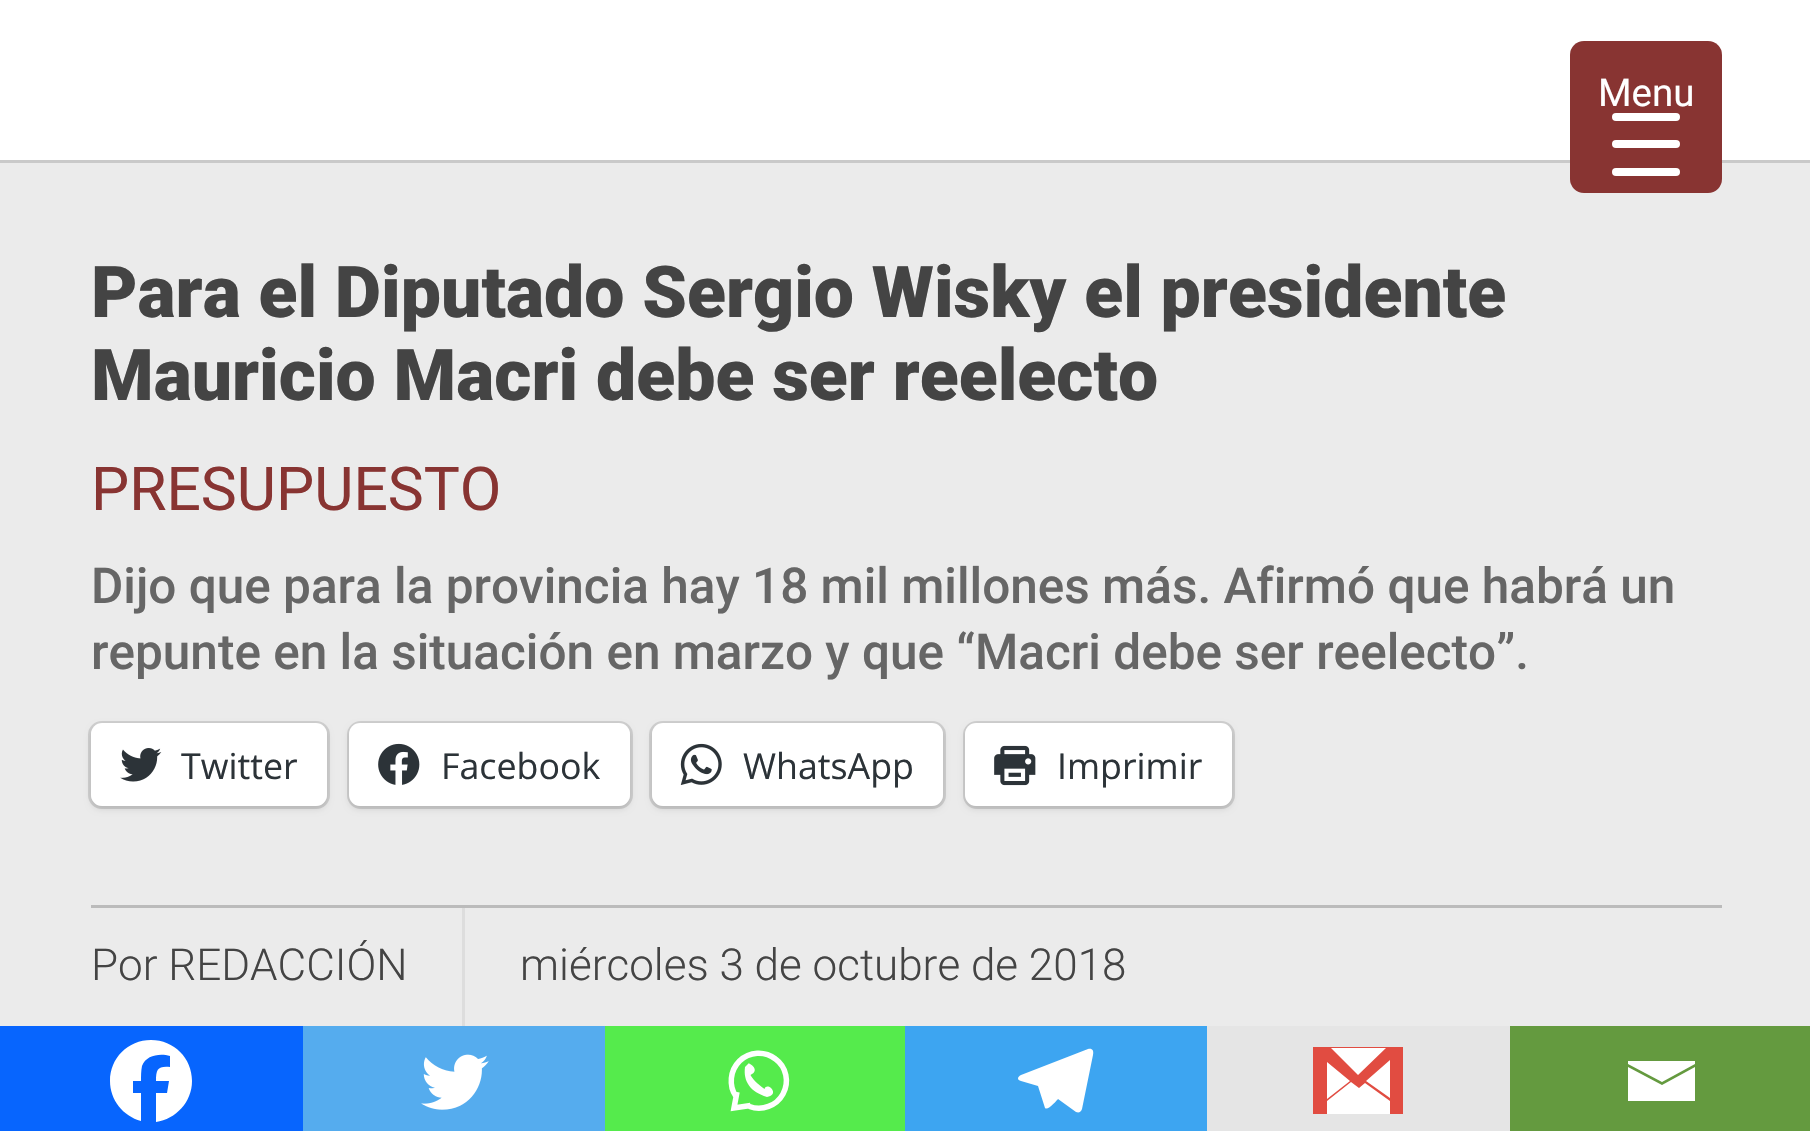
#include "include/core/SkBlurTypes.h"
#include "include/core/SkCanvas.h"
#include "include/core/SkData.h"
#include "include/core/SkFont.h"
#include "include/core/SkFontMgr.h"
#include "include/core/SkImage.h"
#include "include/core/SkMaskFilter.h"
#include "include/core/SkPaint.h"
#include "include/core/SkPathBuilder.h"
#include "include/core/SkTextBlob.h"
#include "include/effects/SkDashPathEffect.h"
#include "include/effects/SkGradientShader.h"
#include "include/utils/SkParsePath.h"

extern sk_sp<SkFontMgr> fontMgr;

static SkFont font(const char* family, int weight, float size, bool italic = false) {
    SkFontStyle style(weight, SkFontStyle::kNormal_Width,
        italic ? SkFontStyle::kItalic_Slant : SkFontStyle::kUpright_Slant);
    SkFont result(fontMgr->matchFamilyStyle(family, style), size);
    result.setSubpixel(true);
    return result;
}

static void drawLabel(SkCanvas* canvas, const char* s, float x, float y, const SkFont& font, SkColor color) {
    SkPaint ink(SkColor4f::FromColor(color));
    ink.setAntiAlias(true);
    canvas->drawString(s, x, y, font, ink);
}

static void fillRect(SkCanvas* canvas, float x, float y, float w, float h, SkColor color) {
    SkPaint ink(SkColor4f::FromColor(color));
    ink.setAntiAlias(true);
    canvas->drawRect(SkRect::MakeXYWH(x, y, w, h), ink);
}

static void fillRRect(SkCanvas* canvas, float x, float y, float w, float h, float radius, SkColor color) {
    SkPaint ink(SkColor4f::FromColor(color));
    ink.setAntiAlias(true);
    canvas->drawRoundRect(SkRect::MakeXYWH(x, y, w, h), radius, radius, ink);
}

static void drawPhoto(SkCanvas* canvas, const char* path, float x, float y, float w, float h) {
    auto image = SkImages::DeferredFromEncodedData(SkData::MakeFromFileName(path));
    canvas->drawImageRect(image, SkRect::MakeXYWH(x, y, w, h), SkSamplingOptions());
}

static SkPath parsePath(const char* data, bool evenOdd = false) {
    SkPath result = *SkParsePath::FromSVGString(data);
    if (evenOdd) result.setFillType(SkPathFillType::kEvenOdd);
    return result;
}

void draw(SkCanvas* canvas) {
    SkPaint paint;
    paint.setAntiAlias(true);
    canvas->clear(0xFFEBEBEB);
    fillRect(canvas, 0, 0, 1810, 160, 0xFFFFFFFF);
    fillRect(canvas, 0, 160, 1810, 3, 0xFFC9C9C9);
    fillRRect(canvas, 1570, 41, 152, 152, 14, 0xFF883432);
    SkFont font1 = font("Roboto", 400, 38.5f);
    drawLabel(canvas, "Menu", 1598, 106, font1, 0xFFFFFFFF);
    fillRRect(canvas, 1612, 140, 68, 8, 4, 0xFFFFFFFF);
    fillRRect(canvas, 1612, 113, 68, 8, 4, 0xFFFFFFFF);
    fillRRect(canvas, 1612, 168, 68, 8, 4, 0xFFFFFFFF);
    SkFont font2 = font("Roboto", 900, 71.5f);
    drawLabel(canvas, "Para el Diputado Sergio Wisky el presidente", 91, 317, font2, 0xFF444444);
    drawLabel(canvas, "Mauricio Macri debe ser reelecto", 91, 400, font2, 0xFF444444);
    SkFont font3 = font("Roboto", 400, 60.5f);
    drawLabel(canvas, "PRESUPUESTO", 91, 510, font3, 0xFF883432);
    SkFont font4 = font("Roboto", 500, 49.5f);
    drawLabel(canvas, "Dijo que para la provincia hay 18 mil millones más. Afirmó que habrá un", 91, 603, font4, 0xFF666666);
    drawLabel(canvas, "repunte en la situación en marzo y que “Macri debe ser reelecto”.", 91, 669, font4, 0xFF666666);
    paint.setStroke(true);
    paint.setStrokeWidth(3);
    paint.setColor(0xFFCFCFCF);
    canvas->drawRoundRect(SkRect::MakeXYWH(89.5f, 722.5f, 239, 85), 12.5f, 12.5f, paint);
    paint.setStroke(false);
    paint.setColor(0x1F000000);
    paint.setMaskFilter(SkMaskFilter::MakeBlur(kNormal_SkBlurStyle, 3));
    canvas->drawRoundRect(SkRect::MakeXYWH(91, 726, 236, 83), 11, 11, paint);
    paint.setMaskFilter(nullptr);
    fillRRect(canvas, 91, 723, 236, 83, 11, 0xFFFFFFFF);
    drawPhoto(canvas, "assets/img1.png", 120, 748, 42, 34);
    SkFont font5 = font("Open Sans", 400, 35.75f);
    drawLabel(canvas, "Twitter", 181, 779, font5, 0xFF2C3338);
    paint.setStroke(true);
    paint.setColor(0xFFCFCFCF);
    canvas->drawRoundRect(SkRect::MakeXYWH(348.5f, 722.5f, 283, 85), 12.5f, 12.5f, paint);
    paint.setStroke(false);
    paint.setColor(0x1F000000);
    paint.setMaskFilter(SkMaskFilter::MakeBlur(kNormal_SkBlurStyle, 3));
    canvas->drawRoundRect(SkRect::MakeXYWH(349, 726, 281, 83), 11, 11, paint);
    paint.setMaskFilter(nullptr);
    fillRRect(canvas, 349, 723, 281, 83, 11, 0xFFFFFFFF);
    drawPhoto(canvas, "assets/img2.png", 378, 743, 42, 42);
    drawLabel(canvas, "Facebook", 441, 779, font5, 0xFF2C3338);
    paint.setStroke(true);
    paint.setColor(0xFFCFCFCF);
    canvas->drawRoundRect(SkRect::MakeXYWH(650.5f, 722.5f, 294, 85), 12.5f, 12.5f, paint);
    paint.setStroke(false);
    paint.setColor(0x1F000000);
    paint.setMaskFilter(SkMaskFilter::MakeBlur(kNormal_SkBlurStyle, 3));
    canvas->drawRoundRect(SkRect::MakeXYWH(652, 726, 291, 83), 11, 11, paint);
    paint.setMaskFilter(nullptr);
    fillRRect(canvas, 652, 723, 291, 83, 11, 0xFFFFFFFF);
    drawPhoto(canvas, "assets/img3.png", 680, 743, 42, 42);
    drawLabel(canvas, "WhatsApp", 743, 779, font5, 0xFF2C3338);
    paint.setStroke(true);
    paint.setColor(0xFFCFCFCF);
    canvas->drawRoundRect(SkRect::MakeXYWH(964.5f, 722.5f, 269, 85), 12.5f, 12.5f, paint);
    paint.setStroke(false);
    paint.setColor(0x1F000000);
    paint.setMaskFilter(SkMaskFilter::MakeBlur(kNormal_SkBlurStyle, 3));
    canvas->drawRoundRect(SkRect::MakeXYWH(965, 726, 267, 83), 11, 11, paint);
    paint.setMaskFilter(nullptr);
    fillRRect(canvas, 965, 723, 267, 83, 11, 0xFFFFFFFF);
    drawPhoto(canvas, "assets/img4.png", 994, 745, 42, 41);
    drawLabel(canvas, "Imprimir", 1057, 779, font5, 0xFF2C3338);
    fillRect(canvas, 91, 905, 1631, 3, 0xFFBBBBBB);
    fillRect(canvas, 462, 908, 3, 118, 0xFFDDDDDD);
    SkFont font6 = font("Roboto", 300, 44);
    drawLabel(canvas, "Por REDACCIÓN", 91, 980, font6, 0xFF444444);
    drawLabel(canvas, "miércoles 3 de octubre de 2018", 520, 980, font6, 0xFF444444);
    fillRect(canvas, 0, 1026, 303, 105, 0xFF0765FE);
    paint.setColor(0xFFFFFFFF);
    canvas->drawPath(parsePath("M192 1081C192 1058 174 1040 151 1040C128 1040 110 1058 110 1081C110 1100 123 1116 141 1121V1093H133V1081H141C141 1076 141 1071 142 1066C146 1055 160 1053 170 1056V1067C158 1066 156 1069 156 1081H169L167 1093H156V1122C176 1119 192 1102 192 1081Z"), paint);
    fillRect(canvas, 303, 1026, 302, 105, 0xFF55ACEE);
    drawPhoto(canvas, "assets/img5.png", 421, 1054, 68, 56);
    fillRect(canvas, 605, 1026, 300, 105, 0xFF55EB4C);
    paint.setStroke(true);
    paint.setStrokeWidth(5.5f);
    canvas->drawPath(parsePath("M749.5 1106.5C762 1111 776.5 1106 783 1094C789.5 1082 786.5 1067 775.5 1059C764.5 1050.5 749.5 1051.5 739.5 1061C730 1070.5 728.5 1085.5 736 1096.5M737 1092L734 1108L750.5 1105.5"), paint);
    paint.setStroke(false);
    canvas->drawPath(parsePath("M745 1067C743 1081.5 750.5 1092 767 1097C781 1094.5 767 1081 764.5 1089C757 1083.5 752.5 1079 750.5 1075C761.5 1070 748 1061.5 748 1064"), paint);
    fillRect(canvas, 905, 1026, 302, 105, 0xFF3DA5F1);
    canvas->drawPath(parsePath("M1088 1049L1021 1075C1017 1077 1017 1080 1021 1081L1038 1086L1045 1108C1048 1111 1057 1100 1058 1099L1076 1112C1079 1113 1081 1112 1082 1109L1093 1055C1094 1050 1092 1048 1088 1049Z"), paint);
    fillRect(canvas, 1207, 1026, 303, 105, 0xFFE5E5E5);
    fillRect(canvas, 1327, 1048, 63, 66, 0xFFFFFFFF);
    paint.setColor(0xFFE14C41);
    canvas->drawPath(parsePath("M1313 1114H1403V1047H1313ZM1390 1101V1114H1327V1101L1351 1082L1359 1088L1365 1083ZM1390 1098L1366 1081L1390 1060ZM1386 1048L1358 1075L1331 1048ZM1350 1081L1327 1099V1062L1350 1081"), paint);
    fillRect(canvas, 1510, 1026, 300, 105, 0xFF649A3F);
    paint.setColor(0xFFFFFFFF);
    canvas->drawPath(parsePath("M1625 1061H1695V1064L1662 1082L1628 1064V1061M1628 1067L1662 1085L1695 1067V1101H1628V1067"), paint);
}
